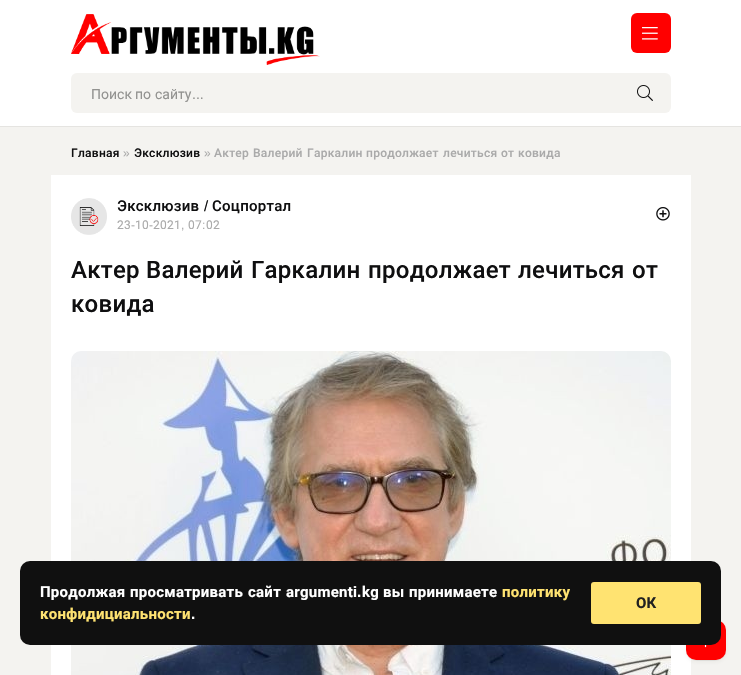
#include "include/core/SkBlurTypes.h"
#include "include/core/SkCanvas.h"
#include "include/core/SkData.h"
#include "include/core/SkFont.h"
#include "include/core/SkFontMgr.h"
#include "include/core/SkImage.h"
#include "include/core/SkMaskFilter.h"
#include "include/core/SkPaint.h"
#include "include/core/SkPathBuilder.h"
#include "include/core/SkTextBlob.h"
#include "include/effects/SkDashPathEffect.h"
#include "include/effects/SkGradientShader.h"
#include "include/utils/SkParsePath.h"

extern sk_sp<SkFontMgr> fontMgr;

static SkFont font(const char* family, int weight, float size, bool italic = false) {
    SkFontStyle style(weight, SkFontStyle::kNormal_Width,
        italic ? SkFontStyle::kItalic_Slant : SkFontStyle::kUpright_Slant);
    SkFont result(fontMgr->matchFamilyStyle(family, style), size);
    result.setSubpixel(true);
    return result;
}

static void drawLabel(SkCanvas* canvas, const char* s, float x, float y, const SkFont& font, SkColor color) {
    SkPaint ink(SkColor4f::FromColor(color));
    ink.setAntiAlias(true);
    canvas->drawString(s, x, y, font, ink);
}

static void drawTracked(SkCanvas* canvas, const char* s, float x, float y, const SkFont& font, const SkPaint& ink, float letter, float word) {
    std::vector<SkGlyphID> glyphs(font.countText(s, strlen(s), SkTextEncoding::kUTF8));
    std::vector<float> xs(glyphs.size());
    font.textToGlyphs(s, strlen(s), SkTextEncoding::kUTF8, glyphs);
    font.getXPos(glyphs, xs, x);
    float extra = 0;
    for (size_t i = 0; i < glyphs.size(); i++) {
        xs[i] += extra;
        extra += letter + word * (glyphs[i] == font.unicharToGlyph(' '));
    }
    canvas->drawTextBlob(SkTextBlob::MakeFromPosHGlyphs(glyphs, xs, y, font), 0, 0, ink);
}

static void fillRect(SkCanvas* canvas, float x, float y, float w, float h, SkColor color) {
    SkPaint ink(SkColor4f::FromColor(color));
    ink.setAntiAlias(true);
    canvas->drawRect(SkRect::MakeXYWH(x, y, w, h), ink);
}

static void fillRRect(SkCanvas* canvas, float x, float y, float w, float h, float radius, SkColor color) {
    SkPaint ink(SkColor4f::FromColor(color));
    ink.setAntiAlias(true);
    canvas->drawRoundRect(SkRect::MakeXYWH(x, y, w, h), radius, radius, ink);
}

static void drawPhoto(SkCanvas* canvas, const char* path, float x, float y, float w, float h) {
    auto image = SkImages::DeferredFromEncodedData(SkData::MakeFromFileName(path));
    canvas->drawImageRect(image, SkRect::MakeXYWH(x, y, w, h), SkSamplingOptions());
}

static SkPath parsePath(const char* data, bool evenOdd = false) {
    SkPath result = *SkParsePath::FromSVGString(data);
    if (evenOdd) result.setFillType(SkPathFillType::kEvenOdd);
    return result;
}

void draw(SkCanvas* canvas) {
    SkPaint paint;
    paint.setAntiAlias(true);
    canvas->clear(0xFFF4F3F0);
    fillRect(canvas, 0, 126, 741, 1, 0xFFE5E4E1);
    fillRect(canvas, 0, 0, 741, 126, 0xFFFFFFFF);
    drawPhoto(canvas, "assets/img1.png", 71, 14, 249, 51);
    fillRRect(canvas, 631, 13, 40, 40, 6, 0xFFFF0000);
    drawPhoto(canvas, "assets/img2.png", 642, 27, 16, 13);
    fillRRect(canvas, 71, 73, 600, 40, 6, 0xFFF4F3F0);
    SkFont font1 = font("Roboto", 400, 14);
    drawLabel(canvas, "Поиск", 91, 99, font1, 0xFF929290);
    drawLabel(canvas, "по", 135, 99, font1, 0xFF929290);
    drawLabel(canvas, "сайту", 155, 99, font1, 0xFF929290);
    SkFont font2 = font("Liberation Sans", 400, 14);
    drawLabel(canvas, "...", 192, 99, font2, 0xFF929290);
    drawPhoto(canvas, "assets/img3.png", 637, 85, 16, 16);
    SkFont font3 = font("Roboto", 500, 12);
    paint.setColor(0xFF0F0F10);
    drawTracked(canvas, "Главная", 71, 157, font3, paint, 0.25f, 0);
    SkFont font4 = font("Liberation Sans", 400, 12);
    paint.setColor(0xFFAAAAAA);
    drawTracked(canvas, "»", 123, 157, font4, paint, 0.25f, 0);
    paint.setColor(0xFF0F0F10);
    drawTracked(canvas, "Эксклюзив", 134, 157, font3, paint, 0.25f, 0);
    paint.setColor(0xFFAAAAAA);
    drawTracked(canvas, "»", 204, 157, font4, paint, 0.25f, 0);
    drawTracked(canvas, "Актер", 214, 157, font3, paint, 0.25f, 0);
    drawTracked(canvas, "Валерий", 253, 157, font3, paint, 0.25f, 0);
    drawTracked(canvas, "Гаркалин", 307, 157, font3, paint, 0.25f, 0);
    drawTracked(canvas, "продолжает", 366, 157, font3, paint, 0.25f, 0);
    drawTracked(canvas, "лечиться", 443, 157, font3, paint, 0.25f, 0);
    drawTracked(canvas, "от", 501, 157, font3, paint, 0.25f, 0);
    drawTracked(canvas, "ковида", 518, 157, font3, paint, 0.25f, 0);
    fillRect(canvas, 51, 175, 640, 500, 0xFFFFFFFF);
    drawPhoto(canvas, "assets/img4.png", 71, 198, 36, 37);
    SkFont font5 = font("Roboto", 500, 15);
    paint.setColor(0xFF0F0F10);
    drawTracked(canvas, "Эксклюзив", 117, 211, font5, paint, 0.25f, 0);
    SkFont font6 = font("Liberation Sans", 400, 15);
    drawTracked(canvas, "/", 204, 211, font6, paint, 0.25f, 0);
    drawTracked(canvas, "Соцпортал", 212, 211, font5, paint, 0.25f, 0);
    SkFont font7 = font("Roboto", 400, 12);
    paint.setColor(0xFFAAAAAA);
    drawTracked(canvas, "23", 117, 229, font7, paint, 0.25f, 0);
    drawTracked(canvas, "-", 131, 229, font4, paint, 0.25f, 0);
    drawTracked(canvas, "10", 135, 229, font7, paint, 0.25f, 0);
    drawTracked(canvas, "-", 149, 229, font4, paint, 0.25f, 0);
    drawTracked(canvas, "2021", 153, 229, font7, paint, 0.25f, 0);
    drawTracked(canvas, "07", 188, 229, font7, paint, 0.25f, 0);
    drawTracked(canvas, ":", 202, 229, font4, paint, 0.25f, 0);
    drawTracked(canvas, "02", 206, 229, font7, paint, 0.25f, 0);
    drawTracked(canvas, ",", 181, 229, font4, paint, 0.25f, 0);
    drawPhoto(canvas, "assets/img5.png", 656, 207, 14, 14);
    SkFont font8 = font("Roboto", 500, 24);
    paint.setColor(0xFF0F0F10);
    drawTracked(canvas, "Актер", 71, 278, font8, paint, 0.25f, 0);
    drawTracked(canvas, "Валерий", 146, 278, font8, paint, 0.25f, 0);
    drawTracked(canvas, "Гаркалин", 251, 278, font8, paint, 0.25f, 0);
    drawTracked(canvas, "продолжает", 368, 278, font8, paint, 0.25f, 0);
    drawTracked(canvas, "лечиться", 518, 278, font8, paint, 0.25f, 0);
    drawTracked(canvas, "от", 632, 278, font8, paint, 0.25f, 0);
    drawTracked(canvas, "ковида", 71, 312, font8, paint, 0.25f, 0);
    drawPhoto(canvas, "assets/img6.png", 71, 351, 600, 324);
    paint.setColor(0x14383230);
    canvas->drawPath(parsePath("M686 650C686 662 697 661 706 661C715 661 726 662 726 650C726 661 714 660 706 660C698 660 686 661 686 650Z"), paint);
    paint.setColor(0x0D383230);
    paint.setMaskFilter(SkMaskFilter::MakeBlur(kNormal_SkBlurStyle, 2));
    canvas->drawRoundRect(SkRect::MakeXYWH(686, 622, 40, 40), 10, 10, paint);
    paint.setMaskFilter(nullptr);
    fillRRect(canvas, 686, 620, 40, 40, 10, 0xFFFF0000);
    fillRRect(canvas, 20, 561, 701, 84, 10, 0xFF101010);
    SkFont font9 = font("Roboto", 700, 15);
    paint.setColor(0xFFFFFFFF);
    drawTracked(canvas, "Продолжая", 40, 597, font9, paint, 0.25f, 0);
    drawTracked(canvas, "просматривать", 130, 597, font9, paint, 0.25f, 0);
    drawTracked(canvas, "сайт", 248, 597, font9, paint, 0.25f, 0);
    drawTracked(canvas, "argumenti", 286, 597, font9, paint, 0.25f, 0);
    SkFont font10 = font("Liberation Sans", 700, 15);
    drawTracked(canvas, ".", 357, 597, font10, paint, 0.25f, 0);
    drawTracked(canvas, "kg", 362, 597, font9, paint, 0.25f, 0);
    drawTracked(canvas, "вы", 383, 597, font9, paint, 0.25f, 0);
    drawTracked(canvas, "принимаете", 409, 597, font9, paint, 0.25f, 0);
    paint.setColor(0xFFFFE371);
    drawTracked(canvas, "политику", 502, 597, font9, paint, 0.25f, 0);
    drawTracked(canvas, "конфидициальности", 40, 619, font9, paint, 0.25f, 0);
    paint.setColor(0xFFFFFFFF);
    drawTracked(canvas, ".", 191, 619, font10, paint, 0.25f, 0);
    fillRRect(canvas, 591, 582, 110, 42, 3, 0xFFFFE371);
    paint.setColor(0xFF212121);
    drawTracked(canvas, "ОК", 636, 608, font9, paint, 0.25f, 0);
    drawPhoto(canvas, "assets/img7.png", 704, 645, 3, 3);
}
